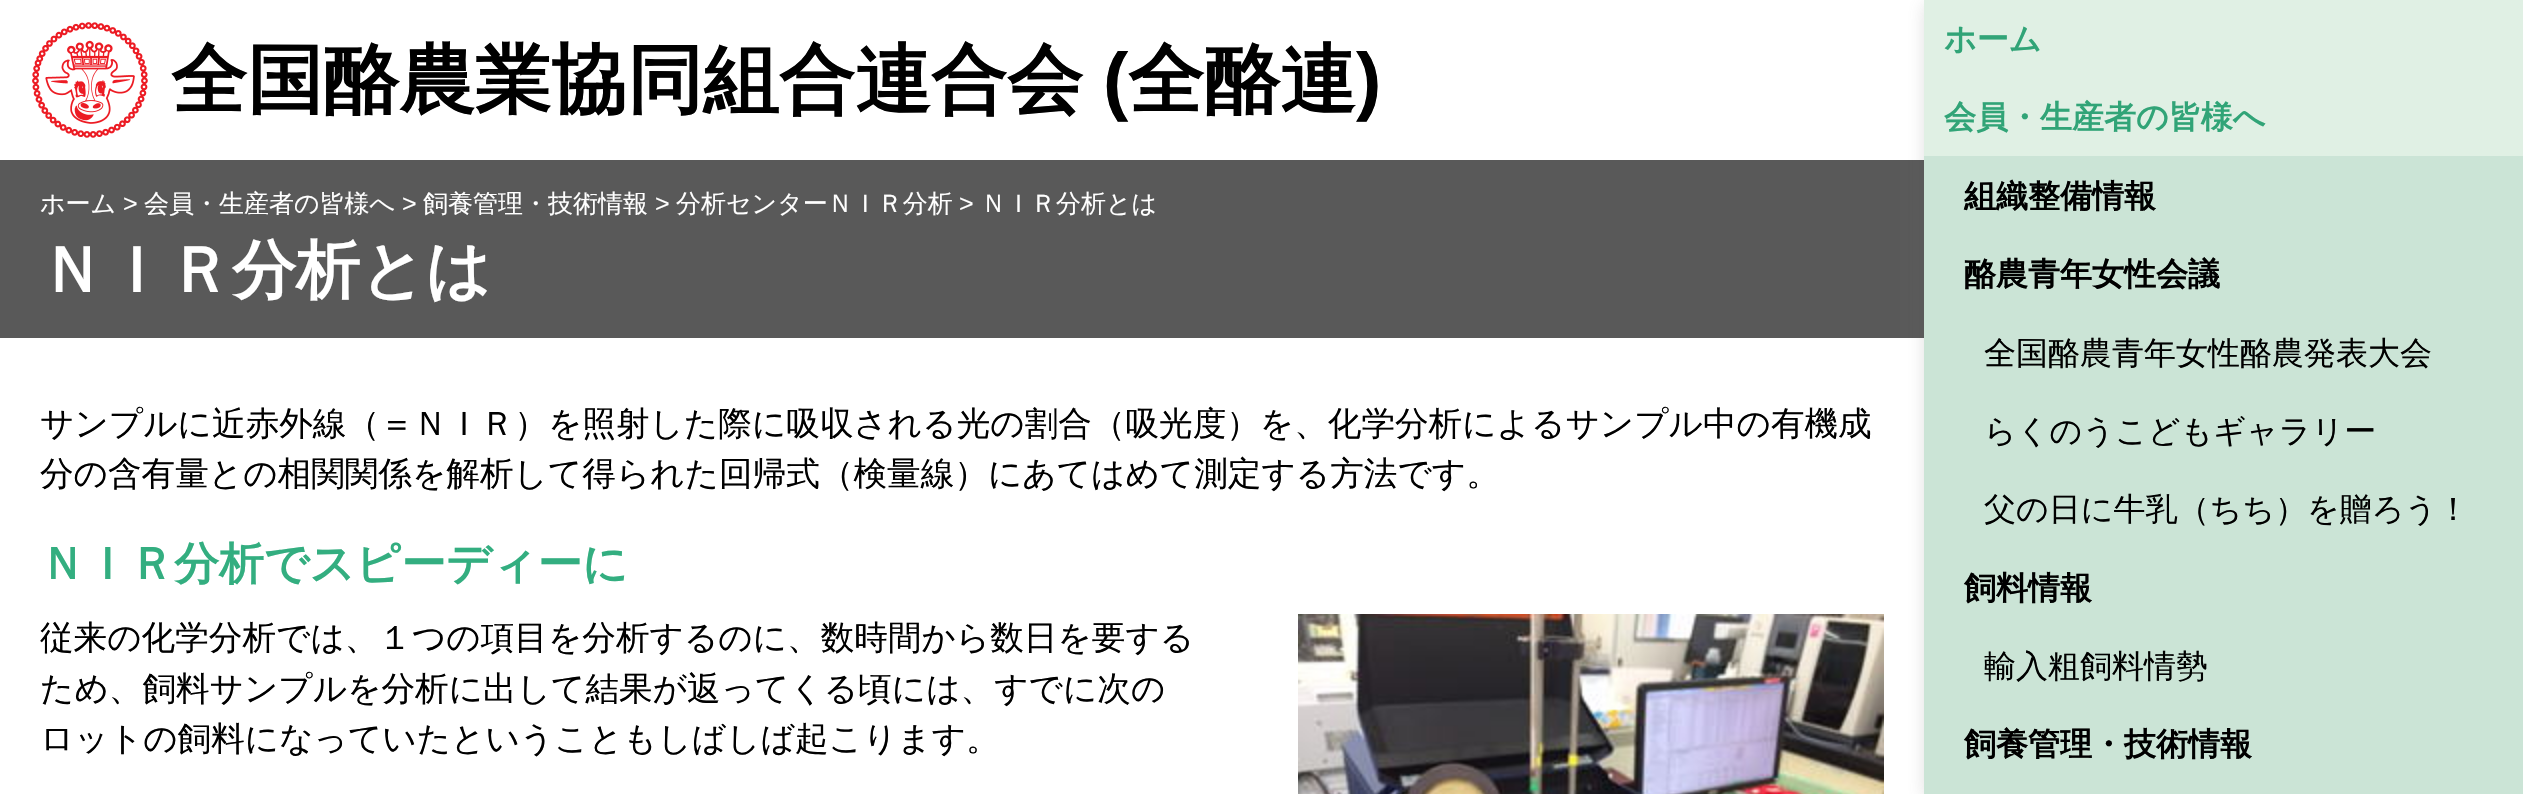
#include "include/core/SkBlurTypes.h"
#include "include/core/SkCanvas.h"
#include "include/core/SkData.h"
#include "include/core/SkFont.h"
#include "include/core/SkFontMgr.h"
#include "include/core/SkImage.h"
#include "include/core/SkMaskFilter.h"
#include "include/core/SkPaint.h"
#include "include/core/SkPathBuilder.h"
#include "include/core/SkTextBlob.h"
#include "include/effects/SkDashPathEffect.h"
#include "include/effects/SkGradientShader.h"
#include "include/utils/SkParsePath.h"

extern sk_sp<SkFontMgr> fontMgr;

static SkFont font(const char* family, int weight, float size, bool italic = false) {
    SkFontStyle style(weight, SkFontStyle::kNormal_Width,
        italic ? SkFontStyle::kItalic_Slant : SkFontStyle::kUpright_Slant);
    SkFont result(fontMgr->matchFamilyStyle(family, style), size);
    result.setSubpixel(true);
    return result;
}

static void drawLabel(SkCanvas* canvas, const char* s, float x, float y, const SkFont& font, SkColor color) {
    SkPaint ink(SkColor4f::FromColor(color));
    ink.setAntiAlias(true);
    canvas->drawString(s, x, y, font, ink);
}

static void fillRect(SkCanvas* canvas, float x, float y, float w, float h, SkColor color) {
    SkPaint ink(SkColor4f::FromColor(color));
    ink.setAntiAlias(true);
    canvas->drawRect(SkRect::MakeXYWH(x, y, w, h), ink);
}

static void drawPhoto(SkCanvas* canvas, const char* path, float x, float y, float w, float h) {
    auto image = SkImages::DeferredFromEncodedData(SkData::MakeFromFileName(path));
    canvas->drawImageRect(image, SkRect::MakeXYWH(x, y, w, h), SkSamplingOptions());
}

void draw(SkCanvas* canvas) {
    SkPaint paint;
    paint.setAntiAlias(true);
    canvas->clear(0xFFFFFFFF);
    drawPhoto(canvas, "assets/img1.png", 32, 22, 116, 116);
    SkFont font1 = font("WenQuanYi Zen Hei", 700, 76);
    drawLabel(canvas, "全国酪農業協同組合連合会", 171, 106, font1, 0xFF000000);
    SkFont font2 = font("Liberation Sans", 700, 76);
    drawLabel(canvas, "(", 1103, 106, font2, 0xFF000000);
    drawLabel(canvas, "全酪連", 1128, 106, font1, 0xFF000000);
    drawLabel(canvas, ")", 1356, 106, font2, 0xFF000000);
    fillRect(canvas, 0, 160, 1924, 178, 0xFF595959);
    SkFont font3 = font("WenQuanYi Zen Hei", 500, 25);
    drawLabel(canvas, "ホーム", 40, 212, font3, 0xFFFFFFFF);
    SkFont font4 = font("Liberation Sans", 400, 25);
    drawLabel(canvas, ">", 123, 212, font4, 0xFFFFFFFF);
    drawLabel(canvas, "会員・生産者の皆様へ", 144, 212, font3, 0xFFFFFFFF);
    drawLabel(canvas, ">", 402, 212, font4, 0xFFFFFFFF);
    drawLabel(canvas, "飼養管理・技術情報", 423, 212, font3, 0xFFFFFFFF);
    drawLabel(canvas, ">", 655, 212, font4, 0xFFFFFFFF);
    drawLabel(canvas, "分析センターＮＩＲ分析", 676, 212, font3, 0xFFFFFFFF);
    drawLabel(canvas, ">", 959, 212, font4, 0xFFFFFFFF);
    drawLabel(canvas, "ＮＩＲ分析とは", 981, 212, font3, 0xFFFFFFFF);
    SkFont font5 = font("WenQuanYi Zen Hei", 700, 64);
    drawLabel(canvas, "ＮＩＲ分析とは", 40, 292, font5, 0xFFFFFFFF);
    SkFont font6 = font("WenQuanYi Zen Hei", 500, 33.6f);
    drawLabel(canvas, "サンプルに近赤外線（＝ＮＩＲ）を照射した際に吸収される光の割合（吸光度）を、化学分析によるサンプル中の有機成", 40, 435, font6, 0xFF000000);
    drawLabel(canvas, "分の含有量との相関関係を解析して得られた回帰式（検量線）にあてはめて測定する方法です。", 40, 485, font6, 0xFF000000);
    SkFont font7 = font("WenQuanYi Zen Hei", 700, 44.75f);
    drawLabel(canvas, "ＮＩＲ分析でスピーディーに", 40, 579, font7, 0xFF33AE80);
    drawLabel(canvas, "従来の化学分析では、１つの項目を分析するのに、数時間から数日を要する", 40, 649, font6, 0xFF000000);
    drawPhoto(canvas, "assets/img2.png", 1298, 614, 586, 180);
    drawLabel(canvas, "ため、飼料サンプルを分析に出して結果が返ってくる頃には、すでに次の", 40, 700, font6, 0xFF000000);
    drawLabel(canvas, "ロットの飼料になっていたということもしばしば起こります。", 40, 750, font6, 0xFF000000);
    paint.setColor(0x33636363);
    paint.setMaskFilter(SkMaskFilter::MakeBlur(kNormal_SkBlurStyle, 8));
    canvas->drawRect(SkRect::MakeXYWH(1924, 4, 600, 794), paint);
    paint.setMaskFilter(nullptr);
    fillRect(canvas, 1924, 156, 599, 638, 0xFFCBE4D6);
    fillRect(canvas, 1924, 0, 599, 156, 0xFFE0F0E4);
    SkFont font8 = font("WenQuanYi Zen Hei", 700, 32);
    drawLabel(canvas, "ホーム", 1944, 50, font8, 0xFF31A477);
    drawLabel(canvas, "会員・生産者の皆様へ", 1944, 128, font8, 0xFF31A477);
    drawLabel(canvas, "組織整備情報", 1964, 207, font8, 0xFF000000);
    drawLabel(canvas, "酪農青年女性会議", 1964, 285, font8, 0xFF000000);
    SkFont font9 = font("WenQuanYi Zen Hei", 500, 32);
    drawLabel(canvas, "全国酪農青年女性酪農発表大会", 1984, 364, font9, 0xFF000000);
    drawLabel(canvas, "らくのうこどもギャラリー", 1984, 442, font9, 0xFF000000);
    drawLabel(canvas, "父の日に牛乳（ちち）を贈ろう！", 1984, 520, font9, 0xFF000000);
    drawLabel(canvas, "飼料情報", 1964, 599, font8, 0xFF000000);
    drawLabel(canvas, "輸入粗飼料情勢", 1984, 677, font9, 0xFF000000);
    drawLabel(canvas, "飼養管理・技術情報", 1964, 755, font8, 0xFF000000);
}
